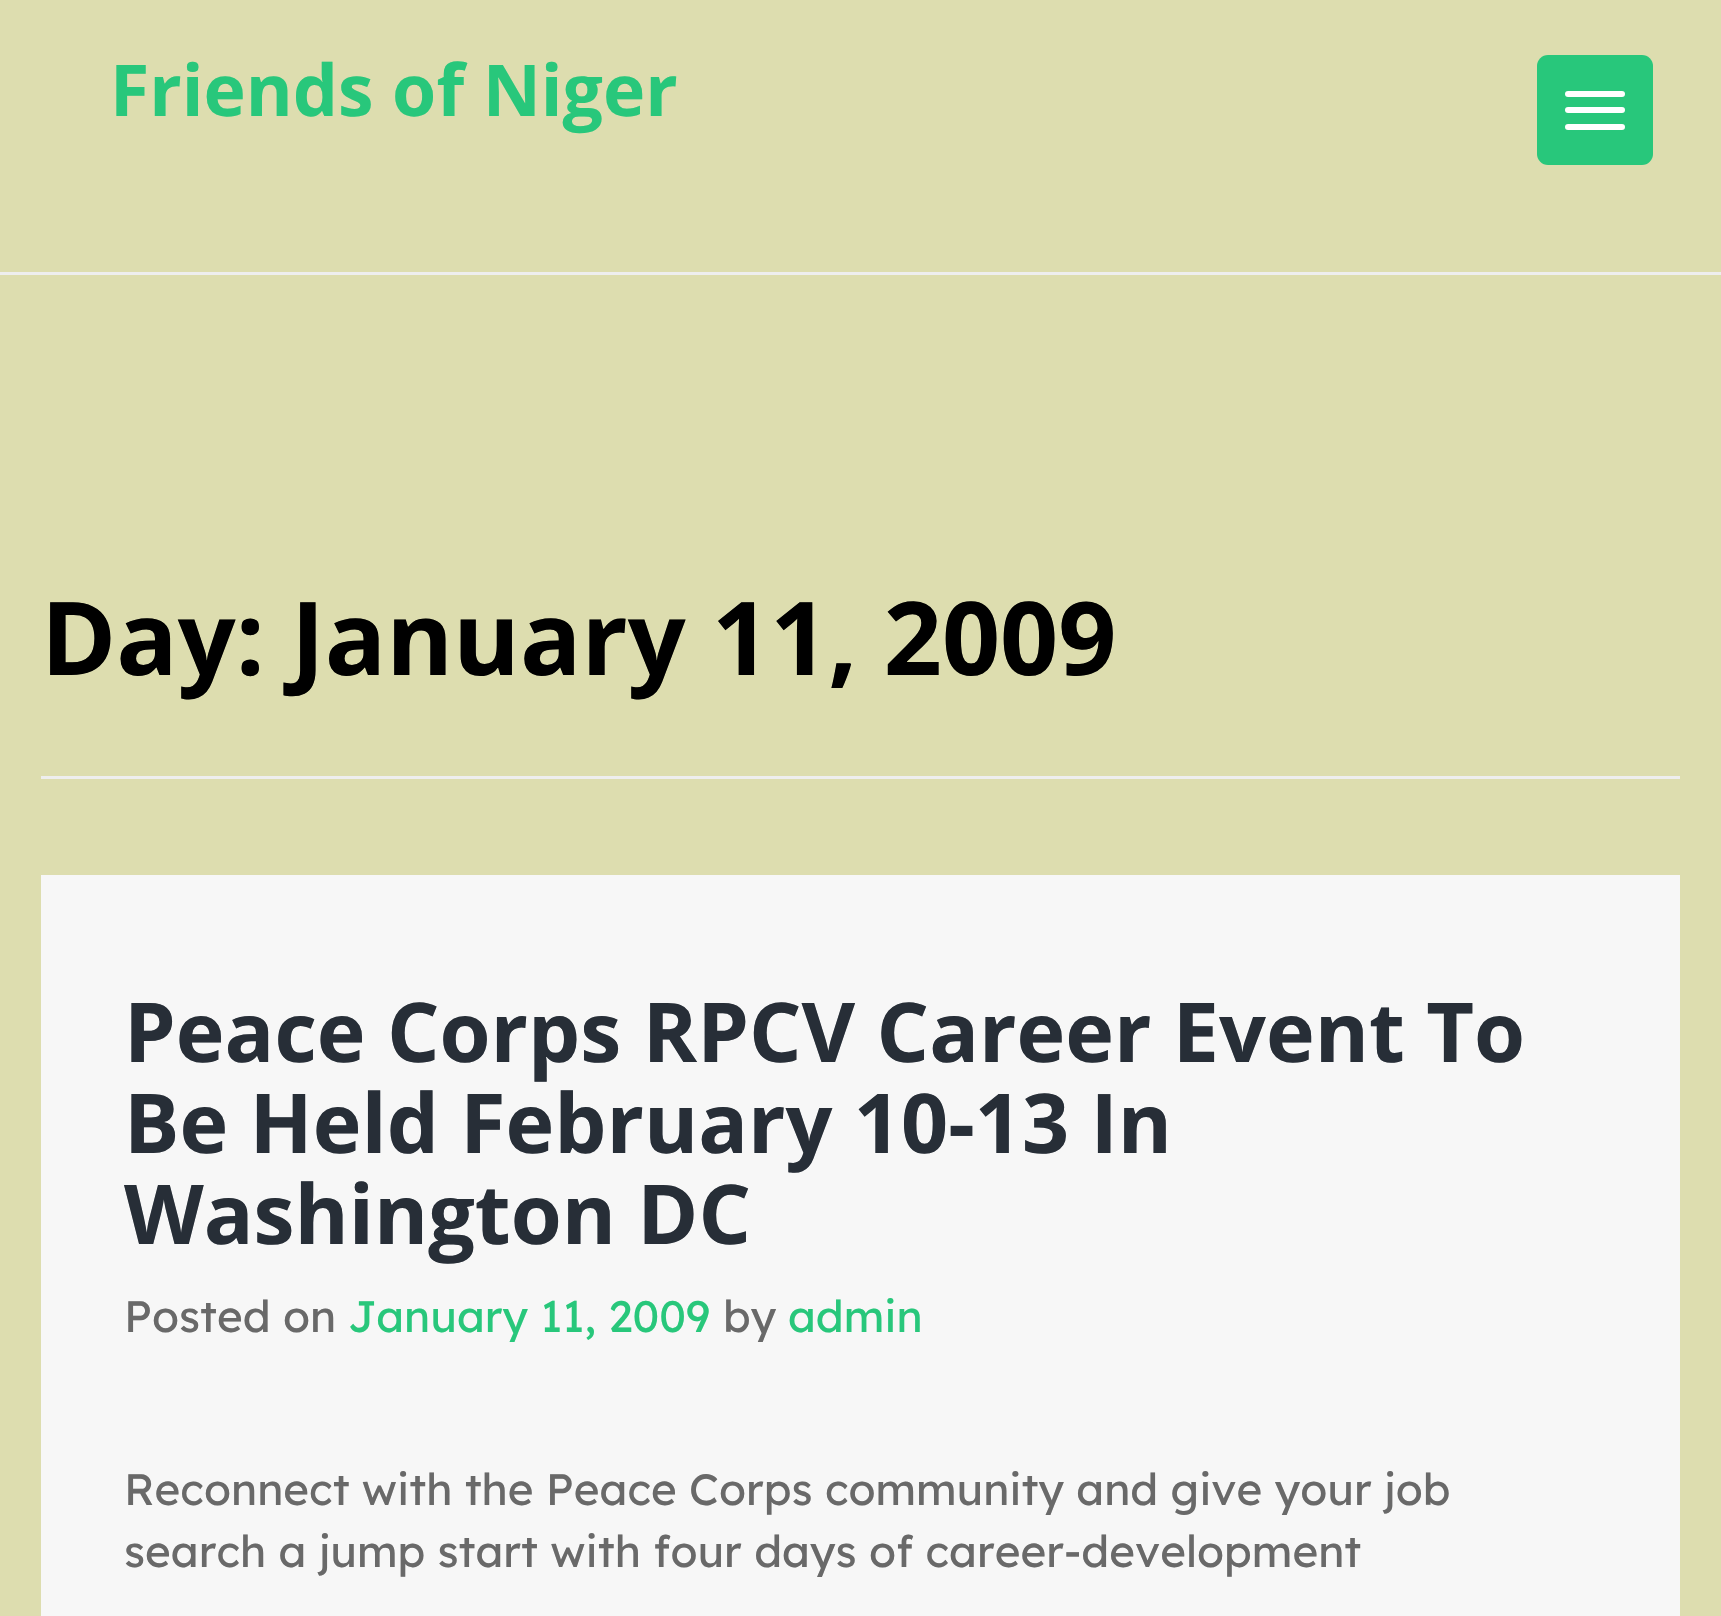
#include "include/core/SkBlurTypes.h"
#include "include/core/SkCanvas.h"
#include "include/core/SkData.h"
#include "include/core/SkFont.h"
#include "include/core/SkFontMgr.h"
#include "include/core/SkImage.h"
#include "include/core/SkMaskFilter.h"
#include "include/core/SkPaint.h"
#include "include/core/SkPathBuilder.h"
#include "include/core/SkTextBlob.h"
#include "include/effects/SkDashPathEffect.h"
#include "include/effects/SkGradientShader.h"
#include "include/utils/SkParsePath.h"

extern sk_sp<SkFontMgr> fontMgr;

static SkFont font(const char* family, int weight, float size, bool italic = false) {
    SkFontStyle style(weight, SkFontStyle::kNormal_Width,
        italic ? SkFontStyle::kItalic_Slant : SkFontStyle::kUpright_Slant);
    SkFont result(fontMgr->matchFamilyStyle(family, style), size);
    result.setSubpixel(true);
    return result;
}

static void drawLabel(SkCanvas* canvas, const char* s, float x, float y, const SkFont& font, SkColor color) {
    SkPaint ink(SkColor4f::FromColor(color));
    ink.setAntiAlias(true);
    canvas->drawString(s, x, y, font, ink);
}

static void fillRect(SkCanvas* canvas, float x, float y, float w, float h, SkColor color) {
    SkPaint ink(SkColor4f::FromColor(color));
    ink.setAntiAlias(true);
    canvas->drawRect(SkRect::MakeXYWH(x, y, w, h), ink);
}

static void fillRRect(SkCanvas* canvas, float x, float y, float w, float h, float radius, SkColor color) {
    SkPaint ink(SkColor4f::FromColor(color));
    ink.setAntiAlias(true);
    canvas->drawRoundRect(SkRect::MakeXYWH(x, y, w, h), radius, radius, ink);
}

void draw(SkCanvas* canvas) {
    SkPaint paint;
    paint.setAntiAlias(true);
    canvas->clear(0xFFDDDDAF);
    fillRect(canvas, 0, 272, 1721, 3, 0xFFEEEEEE);
    SkFont font1 = font("Open Sans", 700, 71.5f);
    drawLabel(canvas, "Friends of Niger", 110, 116, font1, 0xFF28C77B);
    fillRRect(canvas, 1537, 55, 116, 110, 11, 0xFF28C77B);
    fillRRect(canvas, 1565, 91, 60, 6, 3, 0xFFFFFFFF);
    fillRRect(canvas, 1565, 107, 60, 6, 3, 0xFFFFFFFF);
    fillRRect(canvas, 1565, 124, 60, 6, 3, 0xFFFFFFFF);
    fillRect(canvas, 41, 776, 1639, 3, 0xFFEEEEEE);
    SkFont font2 = font("Open Sans", 700, 101.75f);
    drawLabel(canvas, "Day: January 11, 2009", 41, 675, font2, 0xFF000000);
    fillRect(canvas, 41, 875, 1639, 741, 0xFFF7F7F7);
    SkFont font3 = font("Open Sans", 700, 82.5f);
    drawLabel(canvas, "Peace Corps RPCV Career Event To", 124, 1062, font3, 0xFF272E37);
    drawLabel(canvas, "Be Held February 10-13 In", 124, 1153, font3, 0xFF272E37);
    drawLabel(canvas, "Washington DC", 124, 1244, font3, 0xFF272E37);
    SkFont font4 = font("Lexend", 400, 44);
    drawLabel(canvas, "Posted on", 124, 1332, font4, 0xFF696969);
    drawLabel(canvas, "January 11, 2009", 348, 1332, font4, 0xFF28C77B);
    drawLabel(canvas, "by", 723, 1332, font4, 0xFF696969);
    drawLabel(canvas, "admin", 788, 1332, font4, 0xFF28C77B);
    drawLabel(canvas, "Reconnect with the Peace Corps community and give your job", 124, 1505, font4, 0xFF696969);
    drawLabel(canvas, "search a jump start with four days of career-development", 124, 1567, font4, 0xFF696969);
}
